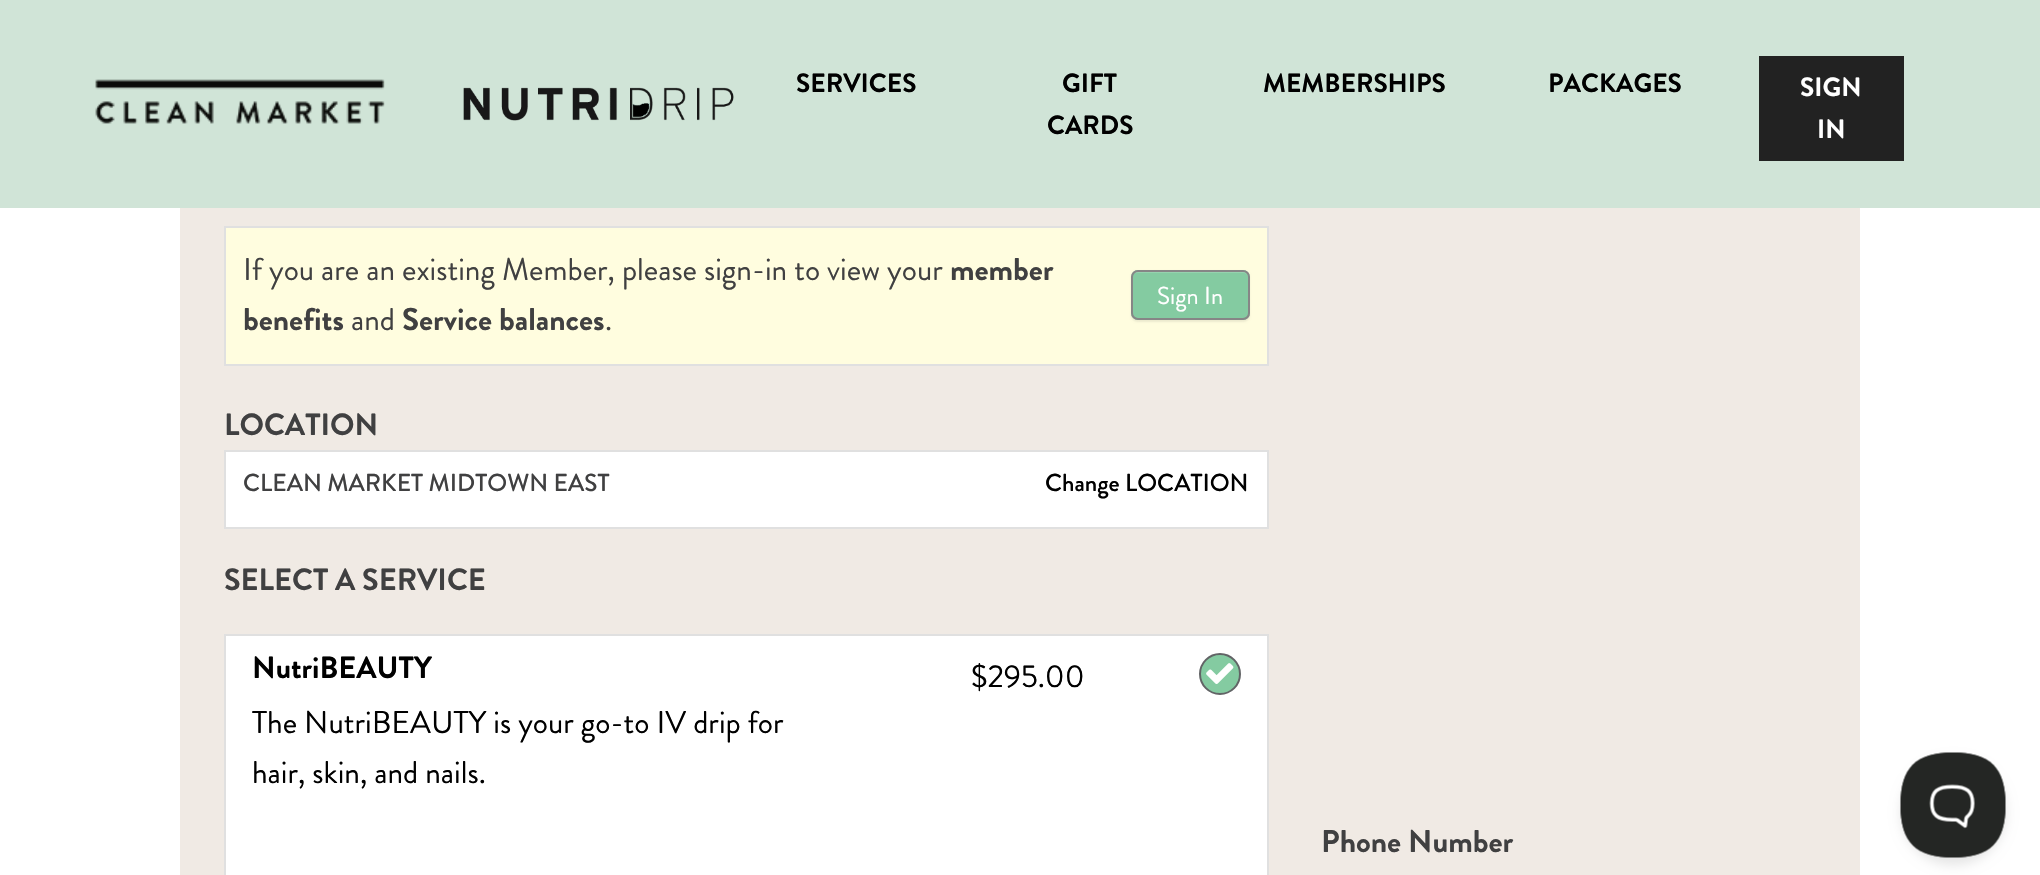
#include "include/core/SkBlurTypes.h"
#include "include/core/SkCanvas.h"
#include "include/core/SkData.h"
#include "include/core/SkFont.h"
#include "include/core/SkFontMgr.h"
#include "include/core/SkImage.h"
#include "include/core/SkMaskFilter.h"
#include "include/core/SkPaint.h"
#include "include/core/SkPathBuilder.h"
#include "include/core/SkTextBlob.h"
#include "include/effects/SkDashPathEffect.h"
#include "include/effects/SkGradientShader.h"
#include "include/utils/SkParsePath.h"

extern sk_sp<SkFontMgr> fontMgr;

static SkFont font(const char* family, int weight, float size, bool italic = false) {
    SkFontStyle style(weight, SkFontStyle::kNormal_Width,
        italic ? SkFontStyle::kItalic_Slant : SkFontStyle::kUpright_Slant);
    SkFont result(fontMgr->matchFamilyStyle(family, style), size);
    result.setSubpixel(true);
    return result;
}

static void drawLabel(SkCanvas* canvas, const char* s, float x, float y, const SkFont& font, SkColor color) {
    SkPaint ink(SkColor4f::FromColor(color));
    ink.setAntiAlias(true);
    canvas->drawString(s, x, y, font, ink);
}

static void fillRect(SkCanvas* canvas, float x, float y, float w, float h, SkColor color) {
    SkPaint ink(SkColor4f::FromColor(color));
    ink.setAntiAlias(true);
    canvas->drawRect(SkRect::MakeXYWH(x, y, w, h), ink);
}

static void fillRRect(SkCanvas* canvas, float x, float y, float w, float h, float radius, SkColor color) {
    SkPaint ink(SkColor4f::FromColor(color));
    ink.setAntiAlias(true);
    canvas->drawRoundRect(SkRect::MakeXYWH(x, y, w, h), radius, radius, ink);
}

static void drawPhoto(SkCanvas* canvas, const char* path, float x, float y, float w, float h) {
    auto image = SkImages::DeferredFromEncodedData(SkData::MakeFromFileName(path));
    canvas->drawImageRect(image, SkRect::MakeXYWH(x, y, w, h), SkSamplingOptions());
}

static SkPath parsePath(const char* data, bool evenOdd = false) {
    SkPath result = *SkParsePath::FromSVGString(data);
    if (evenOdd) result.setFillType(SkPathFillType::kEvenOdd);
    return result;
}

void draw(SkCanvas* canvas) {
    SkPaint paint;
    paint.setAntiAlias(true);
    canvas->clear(0xFFFFFFFF);
    fillRect(canvas, 0, 0, 2040, 208, 0xFFD0E4D7);
    drawPhoto(canvas, "assets/img1.png", 95, 79, 290, 45);
    drawPhoto(canvas, "assets/img2.png", 463, 87, 271, 34);
    SkFont font1 = font("Brandon Grotesque", 700, 26.25f);
    drawLabel(canvas, "SERVICES", 796, 92, font1, 0xFF000000);
    drawLabel(canvas, "GIFT", 1062, 92, font1, 0xFF000000);
    drawLabel(canvas, "CARDS", 1047, 134, font1, 0xFF000000);
    drawLabel(canvas, "MEMBERSHIPS", 1263, 92, font1, 0xFF000000);
    drawLabel(canvas, "PACKAGES", 1548, 92, font1, 0xFF000000);
    fillRect(canvas, 1759, 56, 145, 105, 0xFF222222);
    drawLabel(canvas, "SIGN", 1800, 96, font1, 0xFFFFFFFF);
    drawLabel(canvas, "IN", 1817, 138, font1, 0xFFFFFFFF);
    fillRect(canvas, 180, 208, 1680, 667, 0xFFF0EAE4);
    paint.setColor(0xFFFFFDDF);
    canvas->drawRect(SkRect::MakeXYWH(225, 227, 1043, 138), paint);
    paint.setStroke(true);
    paint.setStrokeWidth(2);
    paint.setColor(0xFFE0E0E0);
    canvas->drawRect(SkRect::MakeXYWH(225, 227, 1043, 138), paint);
    SkFont font2 = font("Brandon Grotesque", 400, 31.5f);
    drawLabel(canvas, "If you are an existing Member, please sign-in to view your", 243, 280, font2, 0xFF404041);
    SkFont font3 = font("Brandon Grotesque", 700, 31.5f);
    drawLabel(canvas, "member", 950, 280, font3, 0xFF404041);
    drawLabel(canvas, "benefits", 243, 330, font3, 0xFF404041);
    drawLabel(canvas, "and", 351, 330, font2, 0xFF404041);
    drawLabel(canvas, "Service balances", 402, 330, font3, 0xFF404041);
    drawLabel(canvas, ".", 605, 330, font2, 0xFF404041);
    paint.setStroke(false);
    paint.setColor(0x12000000);
    paint.setMaskFilter(SkMaskFilter::MakeBlur(kNormal_SkBlurStyle, 1));
    canvas->drawRoundRect(SkRect::MakeXYWH(1131, 271, 119, 51), 7, 7, paint);
    paint.setMaskFilter(nullptr);
    fillRRect(canvas, 1131, 270, 119, 50, 7, 0xFF84CBA1);
    paint.setColor(0x26FFFFFF);
    canvas->drawPath(parsePath("M1137 273H1243C1246 273 1248 275 1248 277V275C1248 273 1246 271 1244 271H1136C1134 271 1132 273 1132 275V277C1132 275 1134 273 1137 273Z"), paint);
    paint.setStroke(true);
    paint.setColor(0xFF868686);
    canvas->drawRoundRect(SkRect::MakeXYWH(1132, 271, 117, 48), 6, 6, paint);
    SkFont font4 = font("Brandon Grotesque", 400, 24.5f);
    drawLabel(canvas, "Sign In", 1157, 304, font4, 0xFFFFFFFF);
    SkFont font5 = font("Brandon Grotesque", 700, 30.6f);
    drawLabel(canvas, "LOCATION", 224, 435, font5, 0xFF404041);
    paint.setStroke(false);
    paint.setColor(0xFFFFFFFF);
    canvas->drawRect(SkRect::MakeXYWH(225, 451, 1043, 77), paint);
    paint.setStroke(true);
    paint.setColor(0xFFE0E0E0);
    canvas->drawRect(SkRect::MakeXYWH(225, 451, 1043, 77), paint);
    SkFont font6 = font("Brandon Grotesque", 500, 24.5f);
    drawLabel(canvas, "CLEAN MARKET MIDTOWN EAST", 243, 491, font6, 0xFF404041);
    drawLabel(canvas, "Change LOCATION", 1045, 491, font6, 0xFF000000);
    drawLabel(canvas, "SELECT A SERVICE", 224, 590, font5, 0xFF404041);
    fillRect(canvas, 226, 636, 1041, 239, 0xFFFFFFFF);
    fillRect(canvas, 224, 634, 1045, 2, 0xFFE0E0E0);
    fillRect(canvas, 1267, 634, 2, 241, 0xFFE0E0E0);
    fillRect(canvas, 224, 634, 2, 241, 0xFFE0E0E0);
    drawLabel(canvas, "NutriBEAUTY", 252, 678, font5, 0xFF000000);
    drawLabel(canvas, "The NutriBEAUTY is your go-to IV drip for", 252, 733, font2, 0xFF000000);
    drawLabel(canvas, "hair, skin, and nails.", 252, 783, font2, 0xFF000000);
    drawLabel(canvas, "$295.00", 971, 687, font2, 0xFF000000);
    paint.setStroke(false);
    paint.setColor(0xFF84CBA1);
    canvas->drawCircle(1220, 674, 20, paint);
    paint.setStroke(true);
    paint.setColor(0xFF626466);
    canvas->drawCircle(1220, 674, 20, paint);
    drawPhoto(canvas, "assets/img3.png", 1206, 663, 28, 21);
    drawLabel(canvas, "Phone Number", 1321, 852, font3, 0xFF404041);
    paint.setStroke(false);
    paint.setColor(0x1A000000);
    paint.setMaskFilter(SkMaskFilter::MakeBlur(kNormal_SkBlurStyle, 6));
    canvas->drawRoundRect(SkRect::MakeXYWH(1901, 760, 105, 105), 52.5f, 52.5f, paint);
    paint.setMaskFilter(nullptr);
    drawPhoto(canvas, "assets/img4.png", 1900, 752, 106, 106);
}
